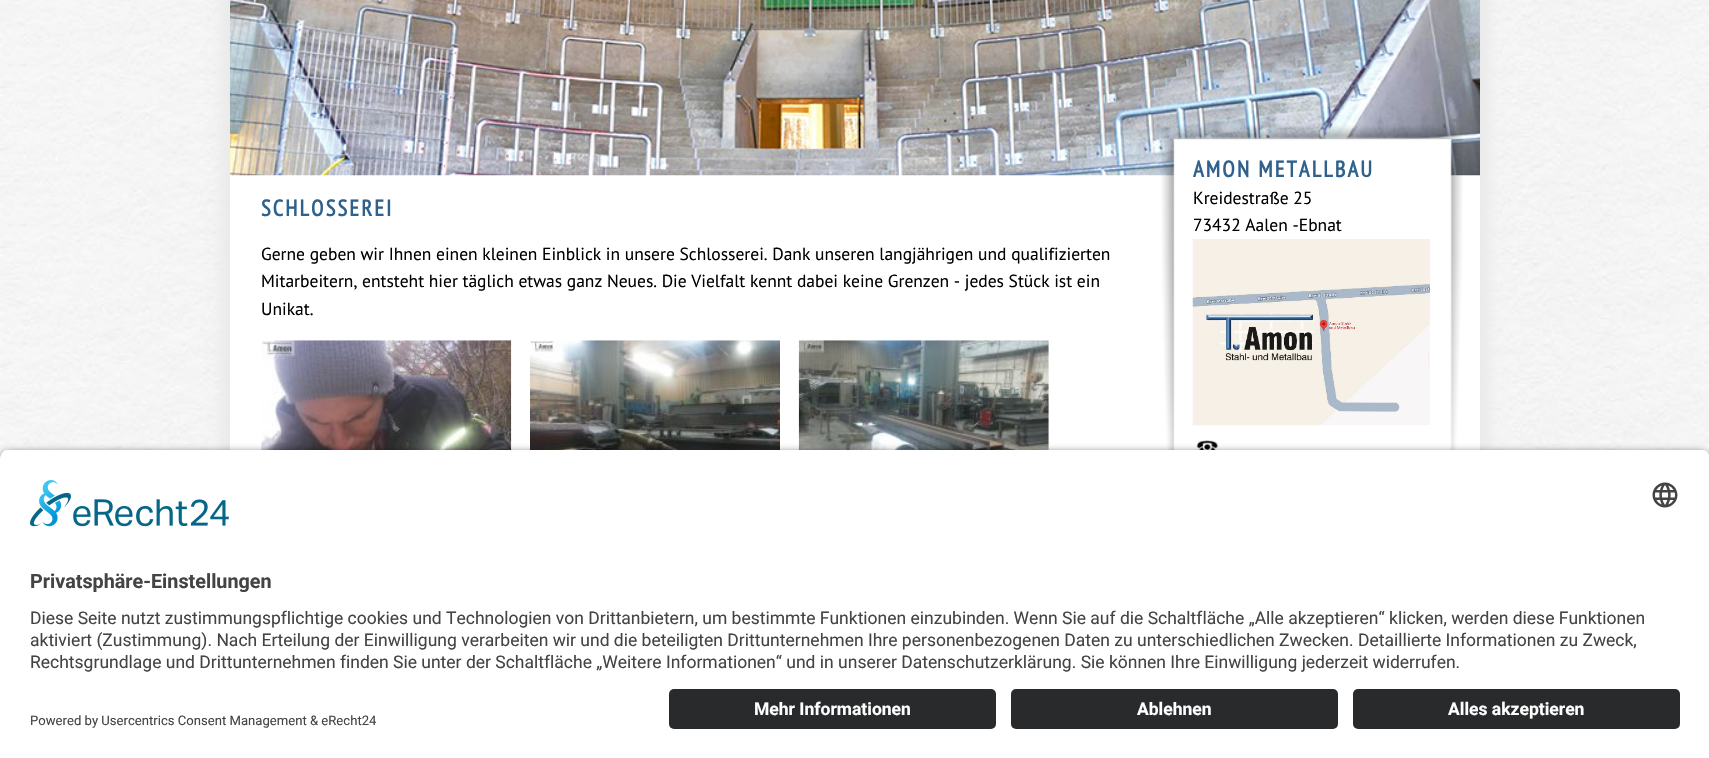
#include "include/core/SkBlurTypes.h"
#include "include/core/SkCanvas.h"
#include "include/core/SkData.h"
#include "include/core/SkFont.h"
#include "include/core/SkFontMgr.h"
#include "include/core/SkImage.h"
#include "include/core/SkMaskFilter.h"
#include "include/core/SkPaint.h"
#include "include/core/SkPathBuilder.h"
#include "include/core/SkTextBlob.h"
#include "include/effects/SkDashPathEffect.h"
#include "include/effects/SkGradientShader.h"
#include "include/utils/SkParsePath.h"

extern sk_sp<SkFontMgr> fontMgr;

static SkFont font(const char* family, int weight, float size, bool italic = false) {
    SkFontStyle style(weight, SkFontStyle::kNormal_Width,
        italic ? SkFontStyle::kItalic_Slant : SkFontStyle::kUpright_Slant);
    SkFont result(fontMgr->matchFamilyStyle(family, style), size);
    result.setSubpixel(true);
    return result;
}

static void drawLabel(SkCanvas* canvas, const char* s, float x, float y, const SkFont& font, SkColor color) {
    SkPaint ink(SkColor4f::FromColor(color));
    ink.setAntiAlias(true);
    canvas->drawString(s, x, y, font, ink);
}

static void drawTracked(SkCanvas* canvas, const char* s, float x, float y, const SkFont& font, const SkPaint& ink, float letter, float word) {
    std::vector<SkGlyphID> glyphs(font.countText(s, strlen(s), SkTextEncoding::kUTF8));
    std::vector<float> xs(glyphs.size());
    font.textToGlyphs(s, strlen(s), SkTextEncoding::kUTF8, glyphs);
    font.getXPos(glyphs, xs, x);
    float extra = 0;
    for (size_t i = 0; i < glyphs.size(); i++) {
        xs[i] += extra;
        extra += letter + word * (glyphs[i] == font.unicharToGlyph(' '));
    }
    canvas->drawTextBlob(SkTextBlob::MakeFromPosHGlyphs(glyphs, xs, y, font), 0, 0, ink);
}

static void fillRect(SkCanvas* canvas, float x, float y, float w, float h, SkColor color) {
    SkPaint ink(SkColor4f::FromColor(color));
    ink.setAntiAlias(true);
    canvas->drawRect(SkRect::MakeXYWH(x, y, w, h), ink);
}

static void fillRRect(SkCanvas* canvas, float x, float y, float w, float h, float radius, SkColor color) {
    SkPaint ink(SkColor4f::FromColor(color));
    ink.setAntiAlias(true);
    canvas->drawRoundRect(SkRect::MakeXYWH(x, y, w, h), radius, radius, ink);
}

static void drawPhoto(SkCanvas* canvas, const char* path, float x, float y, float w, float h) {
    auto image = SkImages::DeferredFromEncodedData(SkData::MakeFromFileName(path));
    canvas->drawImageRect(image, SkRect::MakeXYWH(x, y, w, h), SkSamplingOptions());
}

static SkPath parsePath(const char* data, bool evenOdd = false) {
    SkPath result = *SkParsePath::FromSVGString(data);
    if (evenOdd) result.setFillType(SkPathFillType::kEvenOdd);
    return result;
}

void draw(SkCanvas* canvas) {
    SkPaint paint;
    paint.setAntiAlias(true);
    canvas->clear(0xFFFFFFFF);
    drawPhoto(canvas, "assets/img1.png", 0, 0, 1709, 459);
    paint.setColor(0xFFEBEBEB);
    paint.setMaskFilter(SkMaskFilter::MakeBlur(kNormal_SkBlurStyle, 6));
    canvas->drawRect(SkRect::MakeXYWH(220, -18, 1250, 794), paint);
    paint.setMaskFilter(nullptr);
    paint.setMaskFilter(SkMaskFilter::MakeBlur(kNormal_SkBlurStyle, 6));
    canvas->drawRect(SkRect::MakeXYWH(240, -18, 1250, 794), paint);
    paint.setMaskFilter(nullptr);
    fillRect(canvas, 230, 175, 1250, 275, 0xFFFFFFFF);
    drawPhoto(canvas, "assets/img2.png", 230, 0, 1250, 176);
    SkFont font1 = font("PT Sans Narrow", 700, 22.5f);
    paint.setColor(0xFF2F618C);
    drawTracked(canvas, "SCHLOSSEREI", 261, 216, font1, paint, 2.2f, 0);
    SkFont font2 = font("PT Sans", 400, 17.5f);
    drawLabel(canvas, "Gerne geben wir Ihnen einen kleinen Einblick in unsere Schlosserei. Dank unseren langjährigen und qualifizierten", 261, 260, font2, 0xFF000000);
    drawLabel(canvas, "Mitarbeitern, entsteht hier täglich etwas ganz Neues. Die Vielfalt kennt dabei keine Grenzen - jedes Stück ist ein", 261, 287, font2, 0xFF000000);
    drawLabel(canvas, "Unikat.", 261, 315, font2, 0xFF000000);
    drawPhoto(canvas, "assets/img3.png", 261, 340, 251, 110);
    drawPhoto(canvas, "assets/img4.png", 530, 340, 250, 110);
    drawPhoto(canvas, "assets/img5.png", 798, 340, 251, 110);
    drawPhoto(canvas, "assets/img6.png", 1161, 125, 302, 325);
    drawTracked(canvas, "AMON METALLBAU", 1193, 177, font1, paint, 2.2f, 0);
    drawLabel(canvas, "Kreidestraße 25", 1193, 204, font2, 0xFF000000);
    drawLabel(canvas, "73432 Aalen -Ebnat", 1193, 231, font2, 0xFF000000);
    drawPhoto(canvas, "assets/img7.png", 1192, 239, 238, 187);
    drawPhoto(canvas, "assets/img8.png", 1196, 440, 22, 10);
    paint.setColor(0xCC000000);
    paint.setMaskFilter(SkMaskFilter::MakeBlur(kNormal_SkBlurStyle, 4.5f));
    canvas->drawRoundRect(SkRect::MakeXYWH(0, 453, 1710, 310), 10, 10, paint);
    paint.setMaskFilter(nullptr);
    canvas->save();
    canvas->clipPath(parsePath("M10 449H1700C1705.5 449 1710 453.5 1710 459V679H0V459C0 453.5 4.5 449 10 449Z"), true);
    fillRect(canvas, 0, 450, 1709, 229, 0xFFFFFFFF);
    canvas->restore();
    drawPhoto(canvas, "assets/img9.png", 30, 480, 199, 47);
    drawPhoto(canvas, "assets/img10.png", 1652, 482, 26, 26);
    SkFont font3 = font("Roboto", 700, 19.75f);
    drawLabel(canvas, "Privatsphäre-Einstellungen", 30, 588, font3, 0xFF444444);
    SkFont font4 = font("Roboto", 400, 17.5f);
    drawLabel(canvas, "Diese Seite nutzt zustimmungspflichtige cookies und Technologien von Drittanbietern, um bestimmte Funktionen einzubinden. Wenn Sie auf die Schaltfläche „Alle akzeptieren“ klicken, werden diese Funktionen", 30, 624, font4, 0xFF444444);
    drawLabel(canvas, "aktiviert (Zustimmung). Nach Erteilung der Einwilligung verarbeiten wir und die beteiligten Drittunternehmen Ihre personenbezogenen Daten zu unterschiedlichen Zwecken. Detaillierte Informationen zu Zweck,", 30, 646, font4, 0xFF444444);
    drawLabel(canvas, "Rechtsgrundlage und Drittunternehmen finden Sie unter der Schaltfläche „Weitere Informationen“ und in unserer Datenschutzerklärung. Sie können Ihre Einwilligung jederzeit widerrufen.", 30, 668, font4, 0xFF444444);
    fillRect(canvas, 0, 679, 1709, 79, 0xFFFFFFFF);
    fillRRect(canvas, 669, 689, 327, 40, 5, 0xFF292A2B);
    SkFont font5 = font("Roboto", 700, 17.5f);
    drawLabel(canvas, "Mehr Informationen", 754, 715, font5, 0xFFFFFFFF);
    fillRRect(canvas, 1011, 689, 327, 40, 5, 0xFF292A2B);
    drawLabel(canvas, "Ablehnen", 1137, 715, font5, 0xFFFFFFFF);
    fillRRect(canvas, 1353, 689, 327, 40, 5, 0xFF292A2B);
    drawLabel(canvas, "Alles akzeptieren", 1448, 715, font5, 0xFFFFFFFF);
    SkFont font6 = font("Roboto", 400, 13.1f);
    drawLabel(canvas, "Powered by Usercentrics Consent Management & eRecht24", 30, 725, font6, 0xFF444444);
}
